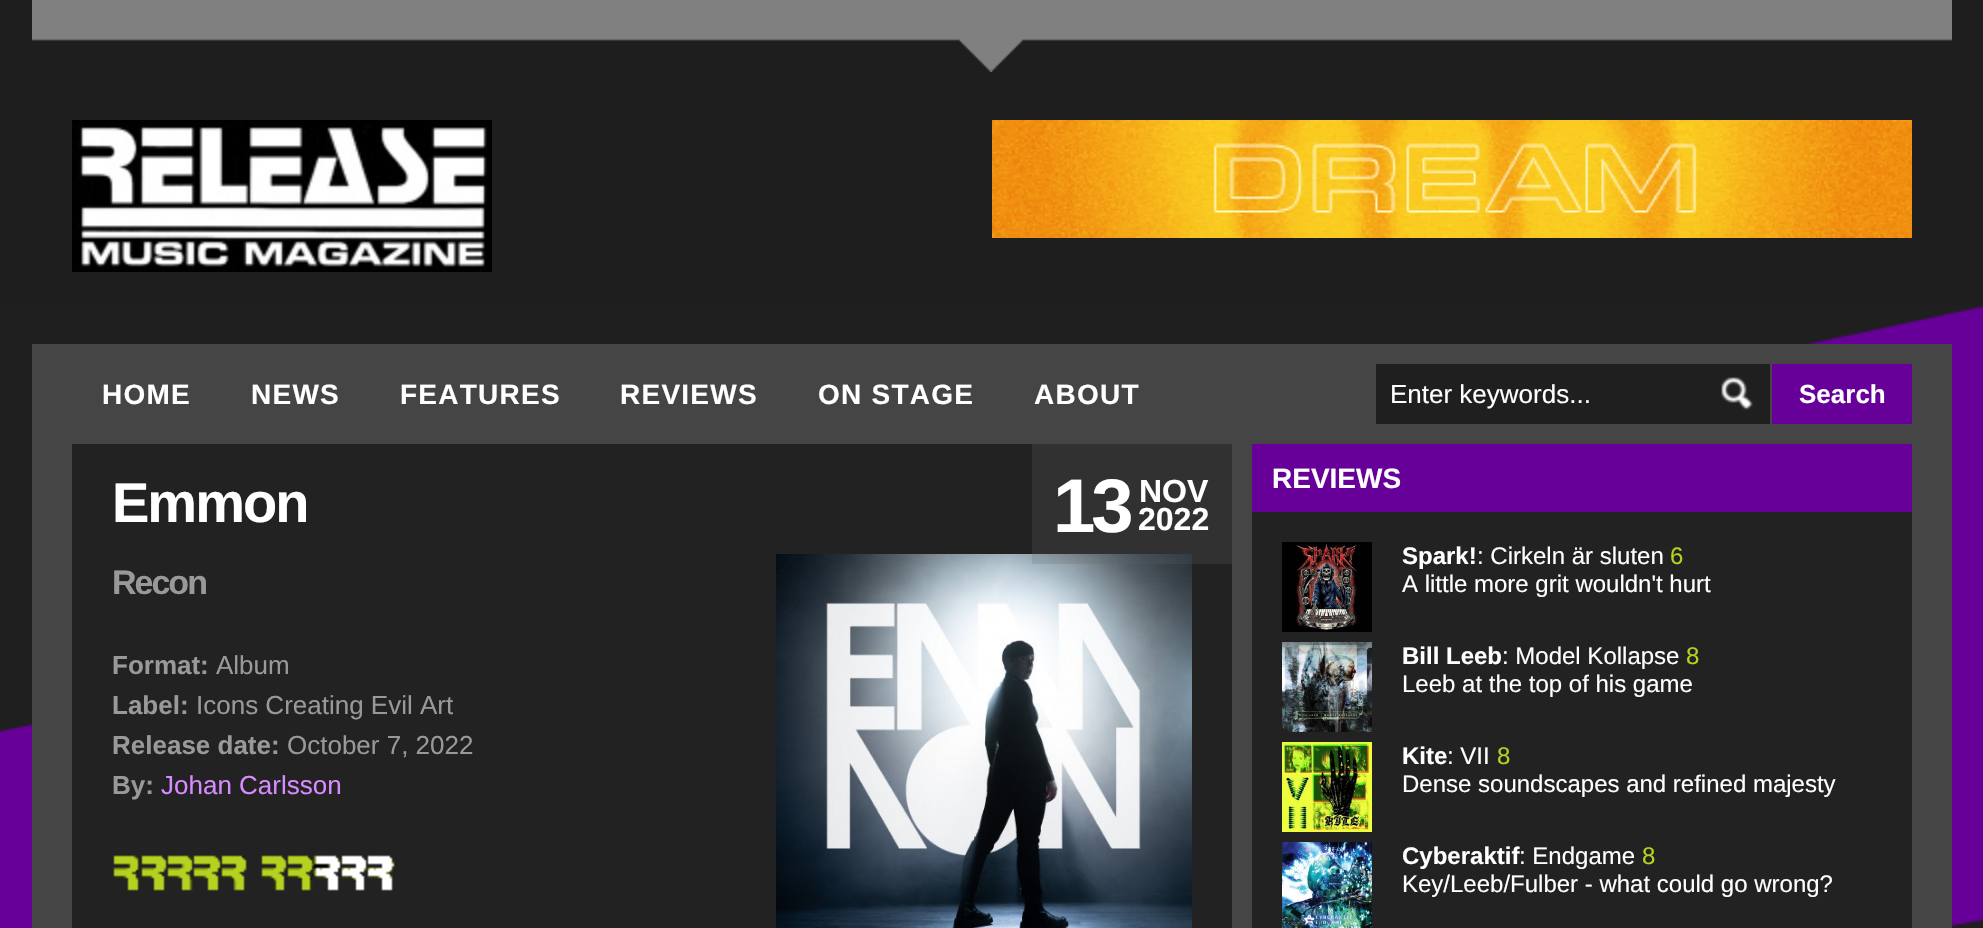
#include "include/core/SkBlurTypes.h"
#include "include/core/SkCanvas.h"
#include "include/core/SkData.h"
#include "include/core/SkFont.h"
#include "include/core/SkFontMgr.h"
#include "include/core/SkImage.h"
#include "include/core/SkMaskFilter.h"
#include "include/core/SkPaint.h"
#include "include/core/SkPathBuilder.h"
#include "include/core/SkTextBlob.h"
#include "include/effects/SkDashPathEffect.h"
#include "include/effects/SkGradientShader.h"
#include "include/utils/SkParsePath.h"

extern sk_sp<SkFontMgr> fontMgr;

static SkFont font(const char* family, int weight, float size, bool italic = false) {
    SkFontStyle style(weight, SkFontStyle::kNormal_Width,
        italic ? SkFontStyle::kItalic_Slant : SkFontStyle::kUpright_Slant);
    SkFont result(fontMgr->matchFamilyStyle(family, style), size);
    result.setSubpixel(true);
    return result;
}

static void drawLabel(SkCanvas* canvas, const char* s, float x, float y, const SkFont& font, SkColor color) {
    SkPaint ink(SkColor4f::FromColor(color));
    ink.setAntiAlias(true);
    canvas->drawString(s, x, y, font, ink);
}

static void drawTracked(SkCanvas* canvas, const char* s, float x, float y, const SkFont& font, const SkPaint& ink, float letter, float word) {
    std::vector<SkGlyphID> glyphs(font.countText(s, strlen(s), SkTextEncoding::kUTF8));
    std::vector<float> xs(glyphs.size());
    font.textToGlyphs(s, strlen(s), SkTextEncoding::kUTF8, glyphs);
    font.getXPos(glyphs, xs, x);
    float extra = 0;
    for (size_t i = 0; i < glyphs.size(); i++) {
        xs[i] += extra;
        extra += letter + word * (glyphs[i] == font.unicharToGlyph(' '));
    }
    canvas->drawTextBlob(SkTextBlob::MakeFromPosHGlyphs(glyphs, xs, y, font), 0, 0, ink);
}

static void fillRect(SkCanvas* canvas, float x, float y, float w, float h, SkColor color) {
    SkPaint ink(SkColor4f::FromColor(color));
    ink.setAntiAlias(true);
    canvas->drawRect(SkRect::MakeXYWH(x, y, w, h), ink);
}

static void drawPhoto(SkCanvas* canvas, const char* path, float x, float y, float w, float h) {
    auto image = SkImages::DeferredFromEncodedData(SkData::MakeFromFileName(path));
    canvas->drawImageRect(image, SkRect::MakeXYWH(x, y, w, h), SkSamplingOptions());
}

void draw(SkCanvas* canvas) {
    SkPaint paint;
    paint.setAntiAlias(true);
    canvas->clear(0xFF1E1E1E);
    drawPhoto(canvas, "assets/img1.png", 0, 305, 1983, 623);
    drawPhoto(canvas, "assets/img2.png", 32, 0, 1920, 72);
    drawPhoto(canvas, "assets/img3.png", 72, 120, 420, 152);
    drawPhoto(canvas, "assets/img4.png", 992, 120, 920, 118);
    fillRect(canvas, 32, 344, 1920, 584, 0xFF454545);
    SkFont font1 = font("Liberation Sans", 700, 28);
    paint.setColor(0xFFFFFFFF);
    drawTracked(canvas, "HOME", 102, 404, font1, paint, 1.25f, 0);
    drawTracked(canvas, "NEWS", 251, 404, font1, paint, 1.25f, 0);
    drawTracked(canvas, "FEATURES", 400, 404, font1, paint, 1.25f, 0);
    drawTracked(canvas, "REVIEWS", 620, 404, font1, paint, 1.25f, 0);
    drawTracked(canvas, "ON STAGE", 818, 404, font1, paint, 1.25f, 0);
    drawTracked(canvas, "ABOUT", 1034, 404, font1, paint, 1.25f, 0);
    fillRect(canvas, 1376, 364, 394, 60, 0xFF1F1F1F);
    drawPhoto(canvas, "assets/img5.png", 1721, 377, 32, 34);
    SkFont font2 = font("Liberation Sans", 400, 26);
    drawLabel(canvas, "Enter keywords...", 1390, 403, font2, 0xFFFFFFFF);
    fillRect(canvas, 1772, 364, 140, 60, 0xFF660099);
    SkFont font3 = font("Liberation Sans", 700, 26);
    drawLabel(canvas, "Search", 1799, 403, font3, 0xFFFFFFFF);
    fillRect(canvas, 72, 444, 1160, 484, 0xFF222222);
    SkFont font4 = font("Liberation Sans", 700, 56);
    drawTracked(canvas, "Emmon", 112, 522, font4, paint, -2, 0);
    SkFont font5 = font("Liberation Sans", 700, 34);
    paint.setColor(0xFF999999);
    drawTracked(canvas, "Recon", 112, 594, font5, paint, -2, 0);
    drawPhoto(canvas, "assets/img6.png", 776, 554, 416, 374);
    drawLabel(canvas, "Format:", 112, 674, font3, 0xFF999999);
    drawLabel(canvas, "Album", 216, 674, font2, 0xFF999999);
    drawLabel(canvas, "Label:", 112, 714, font3, 0xFF999999);
    drawLabel(canvas, "Icons Creating Evil Art", 196, 714, font2, 0xFF999999);
    drawLabel(canvas, "Release date:", 112, 754, font3, 0xFF999999);
    drawLabel(canvas, "October 7, 2022", 287, 754, font2, 0xFF999999);
    drawLabel(canvas, "By:", 112, 794, font3, 0xFF999999);
    drawLabel(canvas, "Johan Carlsson", 161, 794, font2, 0xFFD88BFF);
    drawPhoto(canvas, "assets/img7.png", 113, 855, 282, 36);
    fillRect(canvas, 1032, 444, 200, 120, 0x33696969);
    SkFont font6 = font("Liberation Sans", 700, 76);
    paint.setColor(0xFFFFFFFF);
    drawTracked(canvas, "13", 1053, 532, font6, paint, -4, 0);
    SkFont font7 = font("Liberation Sans", 700, 32);
    drawLabel(canvas, "NOV", 1139, 502, font7, 0xFFFFFFFF);
    drawLabel(canvas, "2022", 1138, 530, font7, 0xFFFFFFFF);
    fillRect(canvas, 1252, 512, 660, 416, 0xFF222222);
    fillRect(canvas, 1252, 444, 660, 68, 0xFF660099);
    drawLabel(canvas, "REVIEWS", 1272, 488, font1, 0xFFFFFFFF);
    drawPhoto(canvas, "assets/img8.png", 1282, 542, 90, 90);
    SkFont font8 = font("Liberation Sans", 700, 24);
    drawLabel(canvas, "Spark!", 1402, 564, font8, 0xFFFFFFFF);
    SkFont font9 = font("Liberation Sans", 400, 24);
    drawLabel(canvas, ": Cirkeln är sluten", 1477, 564, font9, 0xFFFFFFFF);
    drawLabel(canvas, "6", 1670, 564, font9, 0xFFB4D220);
    drawLabel(canvas, "A little more grit wouldn't hurt", 1402, 592, font9, 0xFFFFFFFF);
    drawPhoto(canvas, "assets/img9.png", 1282, 642, 90, 90);
    drawLabel(canvas, "Bill Leeb", 1402, 664, font8, 0xFFFFFFFF);
    drawLabel(canvas, ": Model Kollapse", 1502, 664, font9, 0xFFFFFFFF);
    drawLabel(canvas, "8", 1686, 664, font9, 0xFFB4D220);
    drawLabel(canvas, "Leeb at the top of his game", 1402, 692, font9, 0xFFFFFFFF);
    drawPhoto(canvas, "assets/img10.png", 1282, 742, 90, 90);
    drawLabel(canvas, "Kite", 1402, 764, font8, 0xFFFFFFFF);
    drawLabel(canvas, ": VII", 1447, 764, font9, 0xFFFFFFFF);
    drawLabel(canvas, "8", 1497, 764, font9, 0xFFB4D220);
    drawLabel(canvas, "Dense soundscapes and refined majesty", 1402, 792, font9, 0xFFFFFFFF);
    drawPhoto(canvas, "assets/img11.png", 1282, 842, 90, 86);
    drawLabel(canvas, "Cyberaktif", 1402, 864, font8, 0xFFFFFFFF);
    drawLabel(canvas, ": Endgame", 1519, 864, font9, 0xFFFFFFFF);
    drawLabel(canvas, "8", 1642, 864, font9, 0xFFB4D220);
    drawLabel(canvas, "Key/Leeb/Fulber - what could go wrong?", 1402, 892, font9, 0xFFFFFFFF);
}
